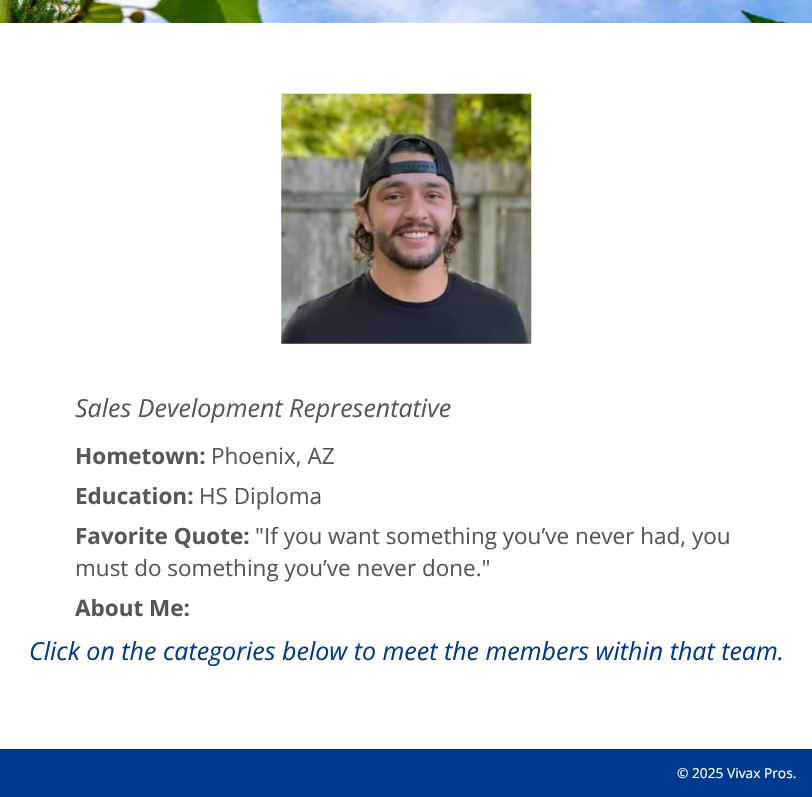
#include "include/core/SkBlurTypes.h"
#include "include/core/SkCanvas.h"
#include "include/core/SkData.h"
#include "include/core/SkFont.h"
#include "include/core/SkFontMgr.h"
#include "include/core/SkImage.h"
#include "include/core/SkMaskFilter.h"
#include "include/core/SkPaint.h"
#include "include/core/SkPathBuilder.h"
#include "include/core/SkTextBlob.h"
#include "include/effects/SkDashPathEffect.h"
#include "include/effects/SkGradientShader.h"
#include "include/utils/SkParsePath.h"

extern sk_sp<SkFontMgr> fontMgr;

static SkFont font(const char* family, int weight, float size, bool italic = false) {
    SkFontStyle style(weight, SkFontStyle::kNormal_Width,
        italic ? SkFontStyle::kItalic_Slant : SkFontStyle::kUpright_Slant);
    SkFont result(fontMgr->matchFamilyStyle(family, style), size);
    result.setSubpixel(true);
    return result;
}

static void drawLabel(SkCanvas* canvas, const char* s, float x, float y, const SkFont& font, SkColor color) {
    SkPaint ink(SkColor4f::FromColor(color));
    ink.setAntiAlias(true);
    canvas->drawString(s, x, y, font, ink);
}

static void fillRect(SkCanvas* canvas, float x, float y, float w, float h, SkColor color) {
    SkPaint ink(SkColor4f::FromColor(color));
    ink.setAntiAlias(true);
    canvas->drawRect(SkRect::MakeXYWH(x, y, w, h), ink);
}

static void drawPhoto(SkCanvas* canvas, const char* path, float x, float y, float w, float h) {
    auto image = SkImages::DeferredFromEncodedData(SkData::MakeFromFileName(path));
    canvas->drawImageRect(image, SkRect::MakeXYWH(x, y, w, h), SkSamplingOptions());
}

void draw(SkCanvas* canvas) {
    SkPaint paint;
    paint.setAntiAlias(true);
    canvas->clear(0xFFFFFFFF);
    drawPhoto(canvas, "assets/img1.png", 0, 0, 812, 23);
    fillRect(canvas, 16, 93, 780, 1, 0xFFF8F9FA);
    drawPhoto(canvas, "assets/img2.png", 281, 93, 251, 251);
    SkFont font1 = font("Open Sans", 400, 25, true);
    drawLabel(canvas, "Sales Development Representative", 75, 417, font1, 0xFF575757);
    SkFont font2 = font("Open Sans", 700, 22.5f);
    drawLabel(canvas, "Hometown:", 75, 464, font2, 0xFF575757);
    SkFont font3 = font("Open Sans", 400, 22.5f);
    drawLabel(canvas, "Phoenix, AZ", 211, 464, font3, 0xFF575757);
    drawLabel(canvas, "Education:", 75, 504, font2, 0xFF575757);
    drawLabel(canvas, "HS Diploma", 199, 504, font3, 0xFF575757);
    drawLabel(canvas, "Favorite Quote:", 75, 544, font2, 0xFF575757);
    drawLabel(canvas, "\"If you want something you’ve never had, you", 255, 544, font3, 0xFF575757);
    drawLabel(canvas, "must do something you’ve never done.\"", 75, 576, font3, 0xFF575757);
    drawLabel(canvas, "About Me:", 75, 616, font2, 0xFF575757);
    drawLabel(canvas, "Click on the categories below to meet the members within that team.", 29, 660, font1, 0xFF003A8E);
    fillRect(canvas, 0, 749, 812, 48, 0xFF003A8E);
    SkFont font4 = font("Open Sans", 400, 13.75f);
    drawLabel(canvas, "© 2025 Vivax Pros.", 677, 778, font4, 0xFFFFFFFF);
}
